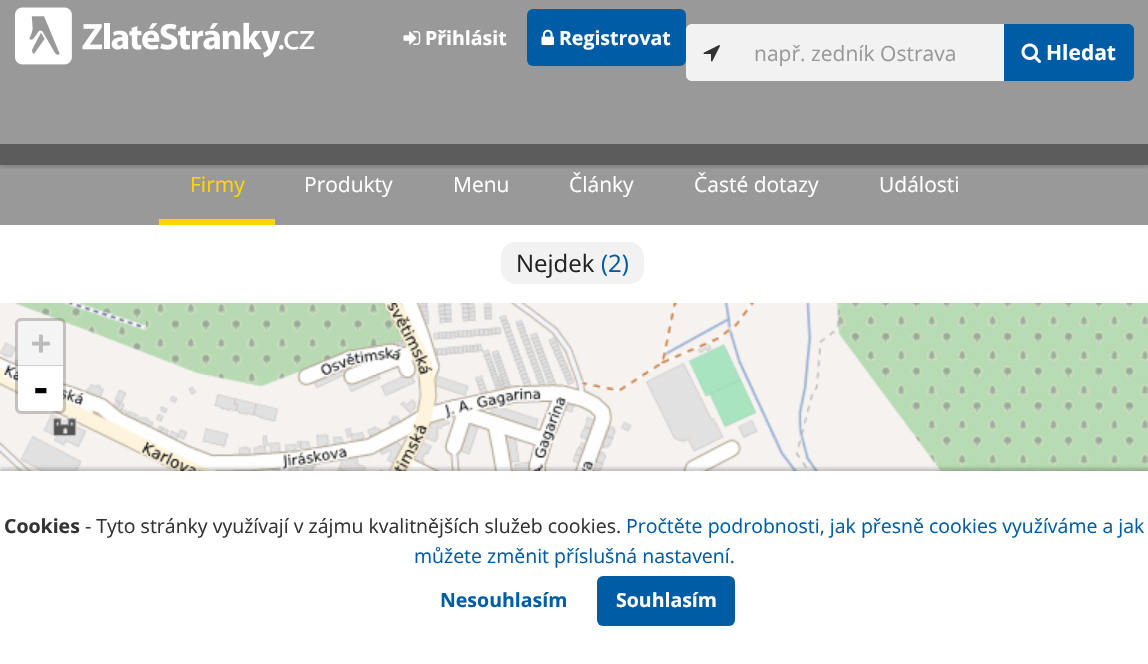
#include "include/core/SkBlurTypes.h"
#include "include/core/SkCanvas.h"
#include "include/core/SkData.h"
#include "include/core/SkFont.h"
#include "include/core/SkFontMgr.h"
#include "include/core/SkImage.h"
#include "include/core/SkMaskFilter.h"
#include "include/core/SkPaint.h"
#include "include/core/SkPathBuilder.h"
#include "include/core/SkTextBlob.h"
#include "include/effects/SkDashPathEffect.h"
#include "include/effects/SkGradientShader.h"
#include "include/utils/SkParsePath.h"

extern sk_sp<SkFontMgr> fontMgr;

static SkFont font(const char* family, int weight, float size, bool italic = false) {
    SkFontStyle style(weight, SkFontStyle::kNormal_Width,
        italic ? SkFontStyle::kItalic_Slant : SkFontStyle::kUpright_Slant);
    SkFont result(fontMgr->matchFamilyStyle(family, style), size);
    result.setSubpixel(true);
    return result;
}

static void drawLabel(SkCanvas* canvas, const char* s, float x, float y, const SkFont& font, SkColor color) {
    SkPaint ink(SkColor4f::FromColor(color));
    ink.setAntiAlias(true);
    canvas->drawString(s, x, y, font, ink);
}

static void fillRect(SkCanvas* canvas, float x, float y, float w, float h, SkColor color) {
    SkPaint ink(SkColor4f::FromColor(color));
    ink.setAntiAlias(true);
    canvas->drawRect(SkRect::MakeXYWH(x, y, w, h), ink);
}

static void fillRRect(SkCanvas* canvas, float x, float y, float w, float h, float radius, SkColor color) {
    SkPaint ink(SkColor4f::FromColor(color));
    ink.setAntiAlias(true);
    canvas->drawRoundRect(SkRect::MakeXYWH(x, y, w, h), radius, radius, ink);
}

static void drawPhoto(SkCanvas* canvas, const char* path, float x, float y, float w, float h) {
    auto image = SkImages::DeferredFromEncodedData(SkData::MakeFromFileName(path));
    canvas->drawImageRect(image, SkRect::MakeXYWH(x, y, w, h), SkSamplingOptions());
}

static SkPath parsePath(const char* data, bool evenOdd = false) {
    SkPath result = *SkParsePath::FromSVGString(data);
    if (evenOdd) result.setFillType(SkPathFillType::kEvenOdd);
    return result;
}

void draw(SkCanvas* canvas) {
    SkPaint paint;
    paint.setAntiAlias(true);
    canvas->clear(0xFFFFFFFF);
    fillRect(canvas, 0, 0, 1148, 144, 0xFF999999);
    fillRect(canvas, 0, 165, 1148, 60, 0xFF999999);
    fillRect(canvas, 0, 144, 1148, 21, 0xFF5C5C5C);
    canvas->save();
    canvas->clipRect(SkRect::MakeXYWH(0, 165, 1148, 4));
    paint.setColor(0x4D000000);
    paint.setMaskFilter(SkMaskFilter::MakeBlur(kNormal_SkBlurStyle, 3));
    canvas->drawRect(SkRect::MakeXYWH(0, 0, 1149, 165), paint);
    paint.setMaskFilter(nullptr);
    canvas->restore();
    drawPhoto(canvas, "assets/img1.png", 15, 7, 300, 58);
    drawPhoto(canvas, "assets/img2.png", 403, 31, 18, 14);
    SkFont font1 = font("Open Sans", 700, 19.5f);
    drawLabel(canvas, "Přihlásit", 425, 45, font1, 0xFFFFFFFF);
    fillRRect(canvas, 527, 9, 159, 57, 6, 0xFF005CA5);
    drawPhoto(canvas, "assets/img3.png", 541, 29, 14, 16);
    drawLabel(canvas, "Registrovat", 559, 45, font1, 0xFFFFFFFF);
    paint.setColor(0xFFF2F2F2);
    canvas->drawPath(parsePath("M692 24H738V81H692C688.5 81 686 78.5 686 75V30C686 26.5 688.5 24 692 24Z"), paint);
    drawPhoto(canvas, "assets/img4.png", 703, 45, 17, 17);
    fillRect(canvas, 738, 24, 266, 57, 0xFFF2F2F2);
    SkFont font2 = font("Open Sans", 400, 21);
    drawLabel(canvas, "např. zedník Ostrava", 754, 61, font2, 0xFF999999);
    paint.setColor(0xFF005CA5);
    canvas->drawPath(parsePath("M1004 24H1128C1131.5 24 1134 26.5 1134 30V75C1134 78.5 1131.5 81 1128 81H1004Z"), paint);
    drawPhoto(canvas, "assets/img5.png", 1021, 43, 20, 20);
    SkFont font3 = font("Open Sans", 700, 21);
    drawLabel(canvas, "Hledat", 1046, 60, font3, 0xFFFFFFFF);
    fillRect(canvas, 159, 219, 116, 6, 0xFFFFD700);
    drawLabel(canvas, "Firmy", 190, 192, font2, 0xFFFFD700);
    drawLabel(canvas, "Produkty", 304, 192, font2, 0xFFFFFFFF);
    drawLabel(canvas, "Menu", 453, 192, font2, 0xFFFFFFFF);
    drawLabel(canvas, "Články", 569, 192, font2, 0xFFFFFFFF);
    drawLabel(canvas, "Časté dotazy", 694, 192, font2, 0xFFFFFFFF);
    drawLabel(canvas, "Události", 879, 192, font2, 0xFFFFFFFF);
    paint.setColor(0xFFF2F2F2);
    canvas->drawRoundRect(SkRect::MakeXYWH(502, 243, 141, 40), 14, 14, paint);
    paint.setStroke(true);
    paint.setStrokeWidth(2);
    canvas->drawRoundRect(SkRect::MakeXYWH(502, 243, 141, 40), 14, 14, paint);
    SkFont font4 = font("Open Sans", 400, 24);
    drawLabel(canvas, "Nejdek", 516, 272, font4, 0xFF232323);
    drawLabel(canvas, "(2)", 601, 272, font4, 0xFF005CA5);
    drawPhoto(canvas, "assets/img6.png", 0, 303, 146, 72);
    drawPhoto(canvas, "assets/img7.png", 146, 303, 384, 72);
    drawPhoto(canvas, "assets/img8.png", 530, 303, 384, 72);
    drawPhoto(canvas, "assets/img9.png", 914, 303, 234, 72);
    drawPhoto(canvas, "assets/img10.png", 0, 375, 146, 96);
    drawPhoto(canvas, "assets/img11.png", 146, 375, 384, 96);
    drawPhoto(canvas, "assets/img12.png", 530, 375, 384, 96);
    drawPhoto(canvas, "assets/img13.png", 914, 375, 234, 96);
    paint.setStrokeWidth(3);
    paint.setColor(0x33000000);
    canvas->drawRoundRect(SkRect::MakeXYWH(16.5f, 319.5f, 48, 93), 4.5f, 4.5f, paint);
    paint.setStroke(false);
    paint.setColor(0xFFF4F4F4);
    canvas->drawPath(parsePath("M24 321H57C60.5 321 63 323.5 63 327V366H18V327C18 323.5 20.5 321 24 321Z"), paint);
    fillRect(canvas, 18, 365, 45, 1, 0xFFCCCCCC);
    SkFont font5 = font("DejaVu Sans Mono", 700, 33);
    drawLabel(canvas, "+", 31, 354, font5, 0xFFBBBBBB);
    paint.setColor(0xFFFFFFFF);
    canvas->drawPath(parsePath("M18 366H63V405C63 408.5 60.5 411 57 411H24C20.5 411 18 408.5 18 405Z"), paint);
    SkFont font6 = font("DejaVu Sans Mono", 700, 36);
    drawLabel(canvas, "-", 30, 401, font6, 0xFF000000);
    paint.setColor(0x33000000);
    paint.setMaskFilter(SkMaskFilter::MakeBlur(kNormal_SkBlurStyle, 1.5f));
    canvas->drawRect(SkRect::MakeXYWH(0, 468, 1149, 194), paint);
    paint.setMaskFilter(nullptr);
    fillRect(canvas, 0, 471, 1148, 193, 0xFFFFFFFF);
    drawLabel(canvas, "Cookies", 4, 533, font1, 0xFF333333);
    SkFont font7 = font("Open Sans", 400, 19.5f);
    drawLabel(canvas, "- Tyto stránky využívají v zájmu kvalitnějších služeb cookies.", 85, 533, font7, 0xFF333333);
    drawLabel(canvas, "Pročtěte podrobnosti, jak přesně cookies využíváme a jak", 626, 533, font7, 0xFF005CA5);
    drawLabel(canvas, "můžete změnit příslušná nastavení.", 414, 563, font7, 0xFF005CA5);
    drawLabel(canvas, "Nesouhlasím", 440, 607, font1, 0xFF005CA5);
    fillRRect(canvas, 597, 576, 138, 50, 6, 0xFF005CA5);
    drawLabel(canvas, "Souhlasím", 616, 607, font1, 0xFFFFFFFF);
}
